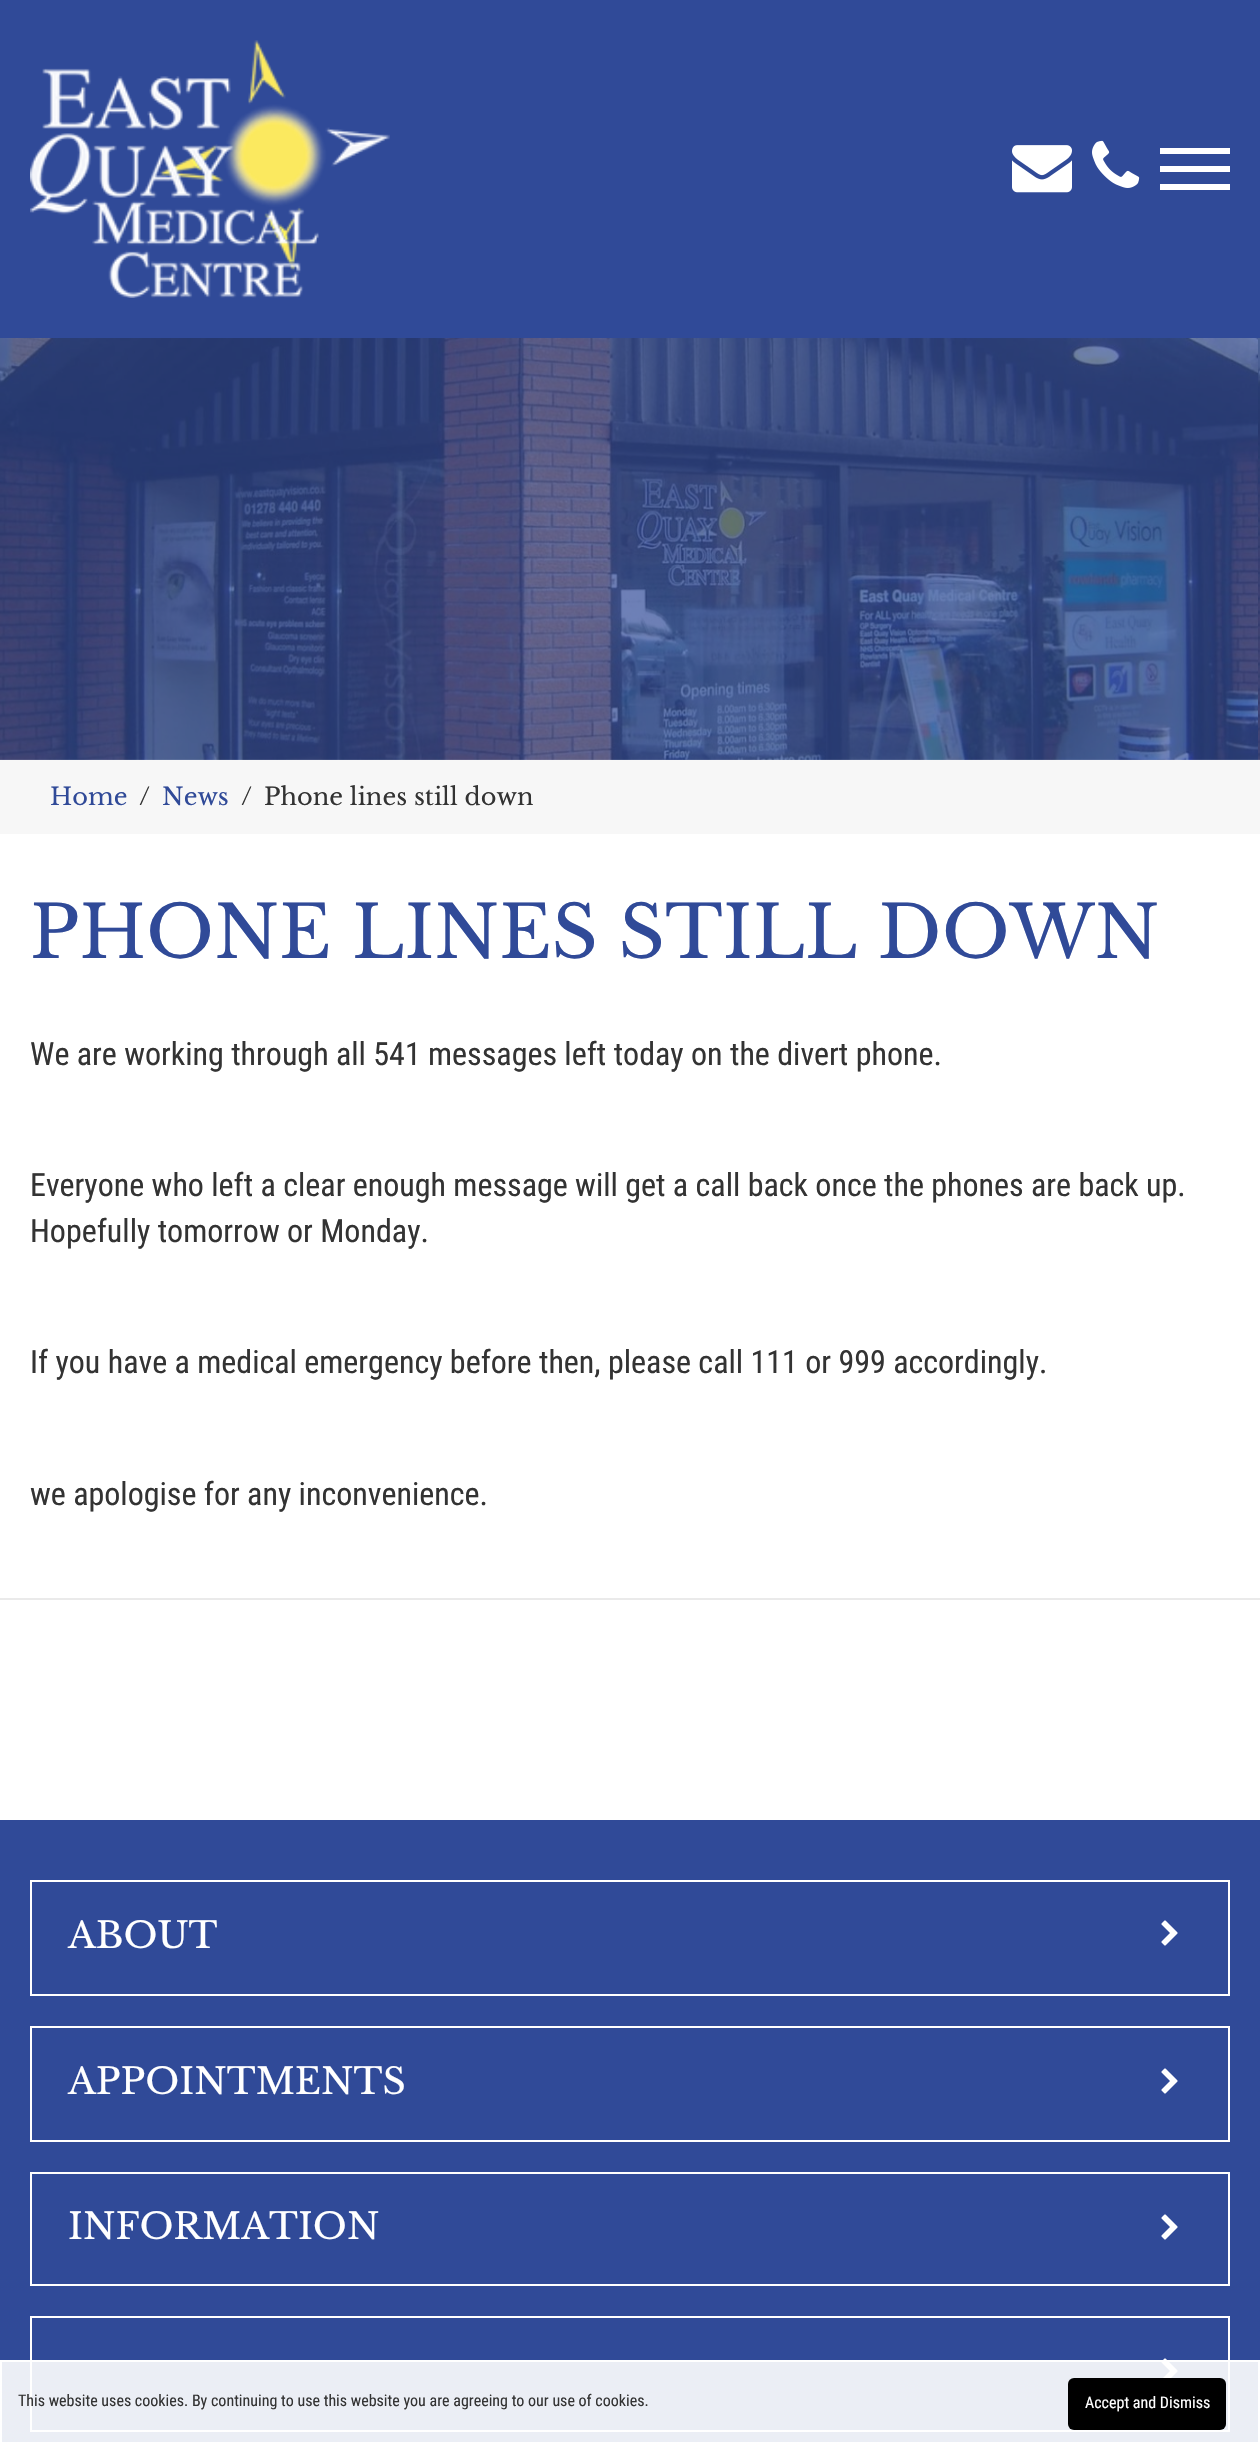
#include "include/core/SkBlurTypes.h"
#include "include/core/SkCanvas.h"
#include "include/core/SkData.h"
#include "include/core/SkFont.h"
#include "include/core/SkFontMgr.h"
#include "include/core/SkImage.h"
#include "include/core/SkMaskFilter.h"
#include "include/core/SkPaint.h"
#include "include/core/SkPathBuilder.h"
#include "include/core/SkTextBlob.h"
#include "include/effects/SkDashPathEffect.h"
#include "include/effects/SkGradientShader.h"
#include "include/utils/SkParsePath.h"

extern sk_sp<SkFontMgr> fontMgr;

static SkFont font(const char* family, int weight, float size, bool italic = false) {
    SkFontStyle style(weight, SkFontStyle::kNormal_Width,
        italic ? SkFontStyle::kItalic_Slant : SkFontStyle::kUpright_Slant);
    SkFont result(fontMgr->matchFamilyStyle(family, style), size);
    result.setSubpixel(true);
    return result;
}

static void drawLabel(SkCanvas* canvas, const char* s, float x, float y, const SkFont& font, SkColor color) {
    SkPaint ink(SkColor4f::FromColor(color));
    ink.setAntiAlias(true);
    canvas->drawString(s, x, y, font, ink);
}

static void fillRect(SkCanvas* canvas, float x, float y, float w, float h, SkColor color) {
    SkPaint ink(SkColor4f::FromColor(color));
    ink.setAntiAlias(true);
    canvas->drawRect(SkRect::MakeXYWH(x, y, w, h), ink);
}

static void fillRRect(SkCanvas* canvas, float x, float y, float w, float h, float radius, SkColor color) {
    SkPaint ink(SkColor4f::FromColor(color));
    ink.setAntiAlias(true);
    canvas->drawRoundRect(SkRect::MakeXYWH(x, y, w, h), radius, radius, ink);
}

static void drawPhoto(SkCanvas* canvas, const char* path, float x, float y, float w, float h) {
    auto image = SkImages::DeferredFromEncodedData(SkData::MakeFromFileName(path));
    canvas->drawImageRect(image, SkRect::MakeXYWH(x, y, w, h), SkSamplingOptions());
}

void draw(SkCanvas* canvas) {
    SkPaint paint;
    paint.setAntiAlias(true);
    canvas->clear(0xFFFFFFFF);
    fillRect(canvas, 0, 0, 1260, 338, 0xFF304A98);
    drawPhoto(canvas, "assets/img1.png", 30, 40, 360, 258);
    drawPhoto(canvas, "assets/img2.png", 1012, 145, 60, 48);
    drawPhoto(canvas, "assets/img3.png", 1092, 140, 48, 48);
    fillRect(canvas, 1160, 148, 70, 6, 0xFFFFFFFF);
    fillRect(canvas, 1160, 166, 70, 6, 0xFFFFFFFF);
    fillRect(canvas, 1160, 184, 70, 6, 0xFFFFFFFF);
    drawPhoto(canvas, "assets/img4.png", 0, 338, 1258, 422);
    drawPhoto(canvas, "assets/img5.png", 1258, 338, 2, 422);
    fillRect(canvas, 0, 760, 1260, 74, 0xFFF7F7F7);
    SkFont font1 = font("Libre Baskerville", 400, 24);
    drawLabel(canvas, "Home", 50, 805, font1, 0xFF304A98);
    drawLabel(canvas, "/", 139, 805, font1, 0xFF333333);
    drawLabel(canvas, "News", 162, 805, font1, 0xFF304A98);
    drawLabel(canvas, "/", 241, 805, font1, 0xFF333333);
    drawLabel(canvas, "Phone lines still down", 264, 805, font1, 0xFF333333);
    SkFont font2 = font("Libre Baskerville", 400, 72);
    drawLabel(canvas, "PHONE LINES STILL DOWN", 30, 958, font2, 0xFF304A98);
    SkFont font3 = font("Roboto Condensed", 400, 32);
    drawLabel(canvas, "We are working through all 541 messages left today on the divert phone.", 30, 1065, font3, 0xFF333333);
    drawLabel(canvas, "Everyone who left a clear enough message will get a call back once the phones are back up.", 30, 1196, font3, 0xFF333333);
    drawLabel(canvas, "Hopefully tomorrow or Monday.", 30, 1242, font3, 0xFF333333);
    drawLabel(canvas, "If you have a medical emergency before then, please call 111 or 999 accordingly.", 30, 1373, font3, 0xFF333333);
    drawLabel(canvas, "we apologise for any inconvenience.", 30, 1505, font3, 0xFF333333);
    fillRect(canvas, 0, 1598, 1260, 2, 0xFFEAEAEA);
    fillRect(canvas, 0, 1820, 1260, 622, 0xFF304A98);
    paint.setStroke(true);
    paint.setStrokeWidth(2);
    paint.setColor(0xFFFFFFFF);
    canvas->drawRect(SkRect::MakeXYWH(31, 1881, 1198, 114), paint);
    SkFont font4 = font("Libre Baskerville", 400, 36);
    drawLabel(canvas, "ABOUT", 68, 1948, font4, 0xFFFFFFFF);
    drawPhoto(canvas, "assets/img6.png", 1161, 1920, 17, 26);
    canvas->drawRect(SkRect::MakeXYWH(31, 2027, 1198, 114), paint);
    drawLabel(canvas, "APPOINTMENTS", 68, 2094, font4, 0xFFFFFFFF);
    drawPhoto(canvas, "assets/img6.png", 1161, 2068, 17, 26);
    canvas->drawRect(SkRect::MakeXYWH(31, 2173, 1198, 112), paint);
    drawLabel(canvas, "INFORMATION", 68, 2239, font4, 0xFFFFFFFF);
    drawPhoto(canvas, "assets/img6.png", 1161, 2214, 17, 26);
    canvas->drawRect(SkRect::MakeXYWH(31, 2317, 1198, 114), paint);
    drawPhoto(canvas, "assets/img7.png", 1161, 2358, 17, 20);
    paint.setStroke(false);
    paint.setColor(0xE6FFFFFF);
    canvas->drawRect(SkRect::MakeXYWH(1, 2361, 1258, 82), paint);
    paint.setStroke(true);
    paint.setColor(0xFFFFFFFF);
    canvas->drawRect(SkRect::MakeXYWH(1, 2361, 1258, 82), paint);
    SkFont font5 = font("Roboto Condensed", 400, 16);
    drawLabel(canvas, "This website uses cookies. By continuing to use this website you are agreeing to our use of cookies.", 18, 2406, font5, 0xFF333333);
    fillRRect(canvas, 1068, 2378, 158, 52, 6, 0xFF000000);
    drawLabel(canvas, "Accept and Dismiss", 1085, 2408, font5, 0xFFFFFFFF);
}
